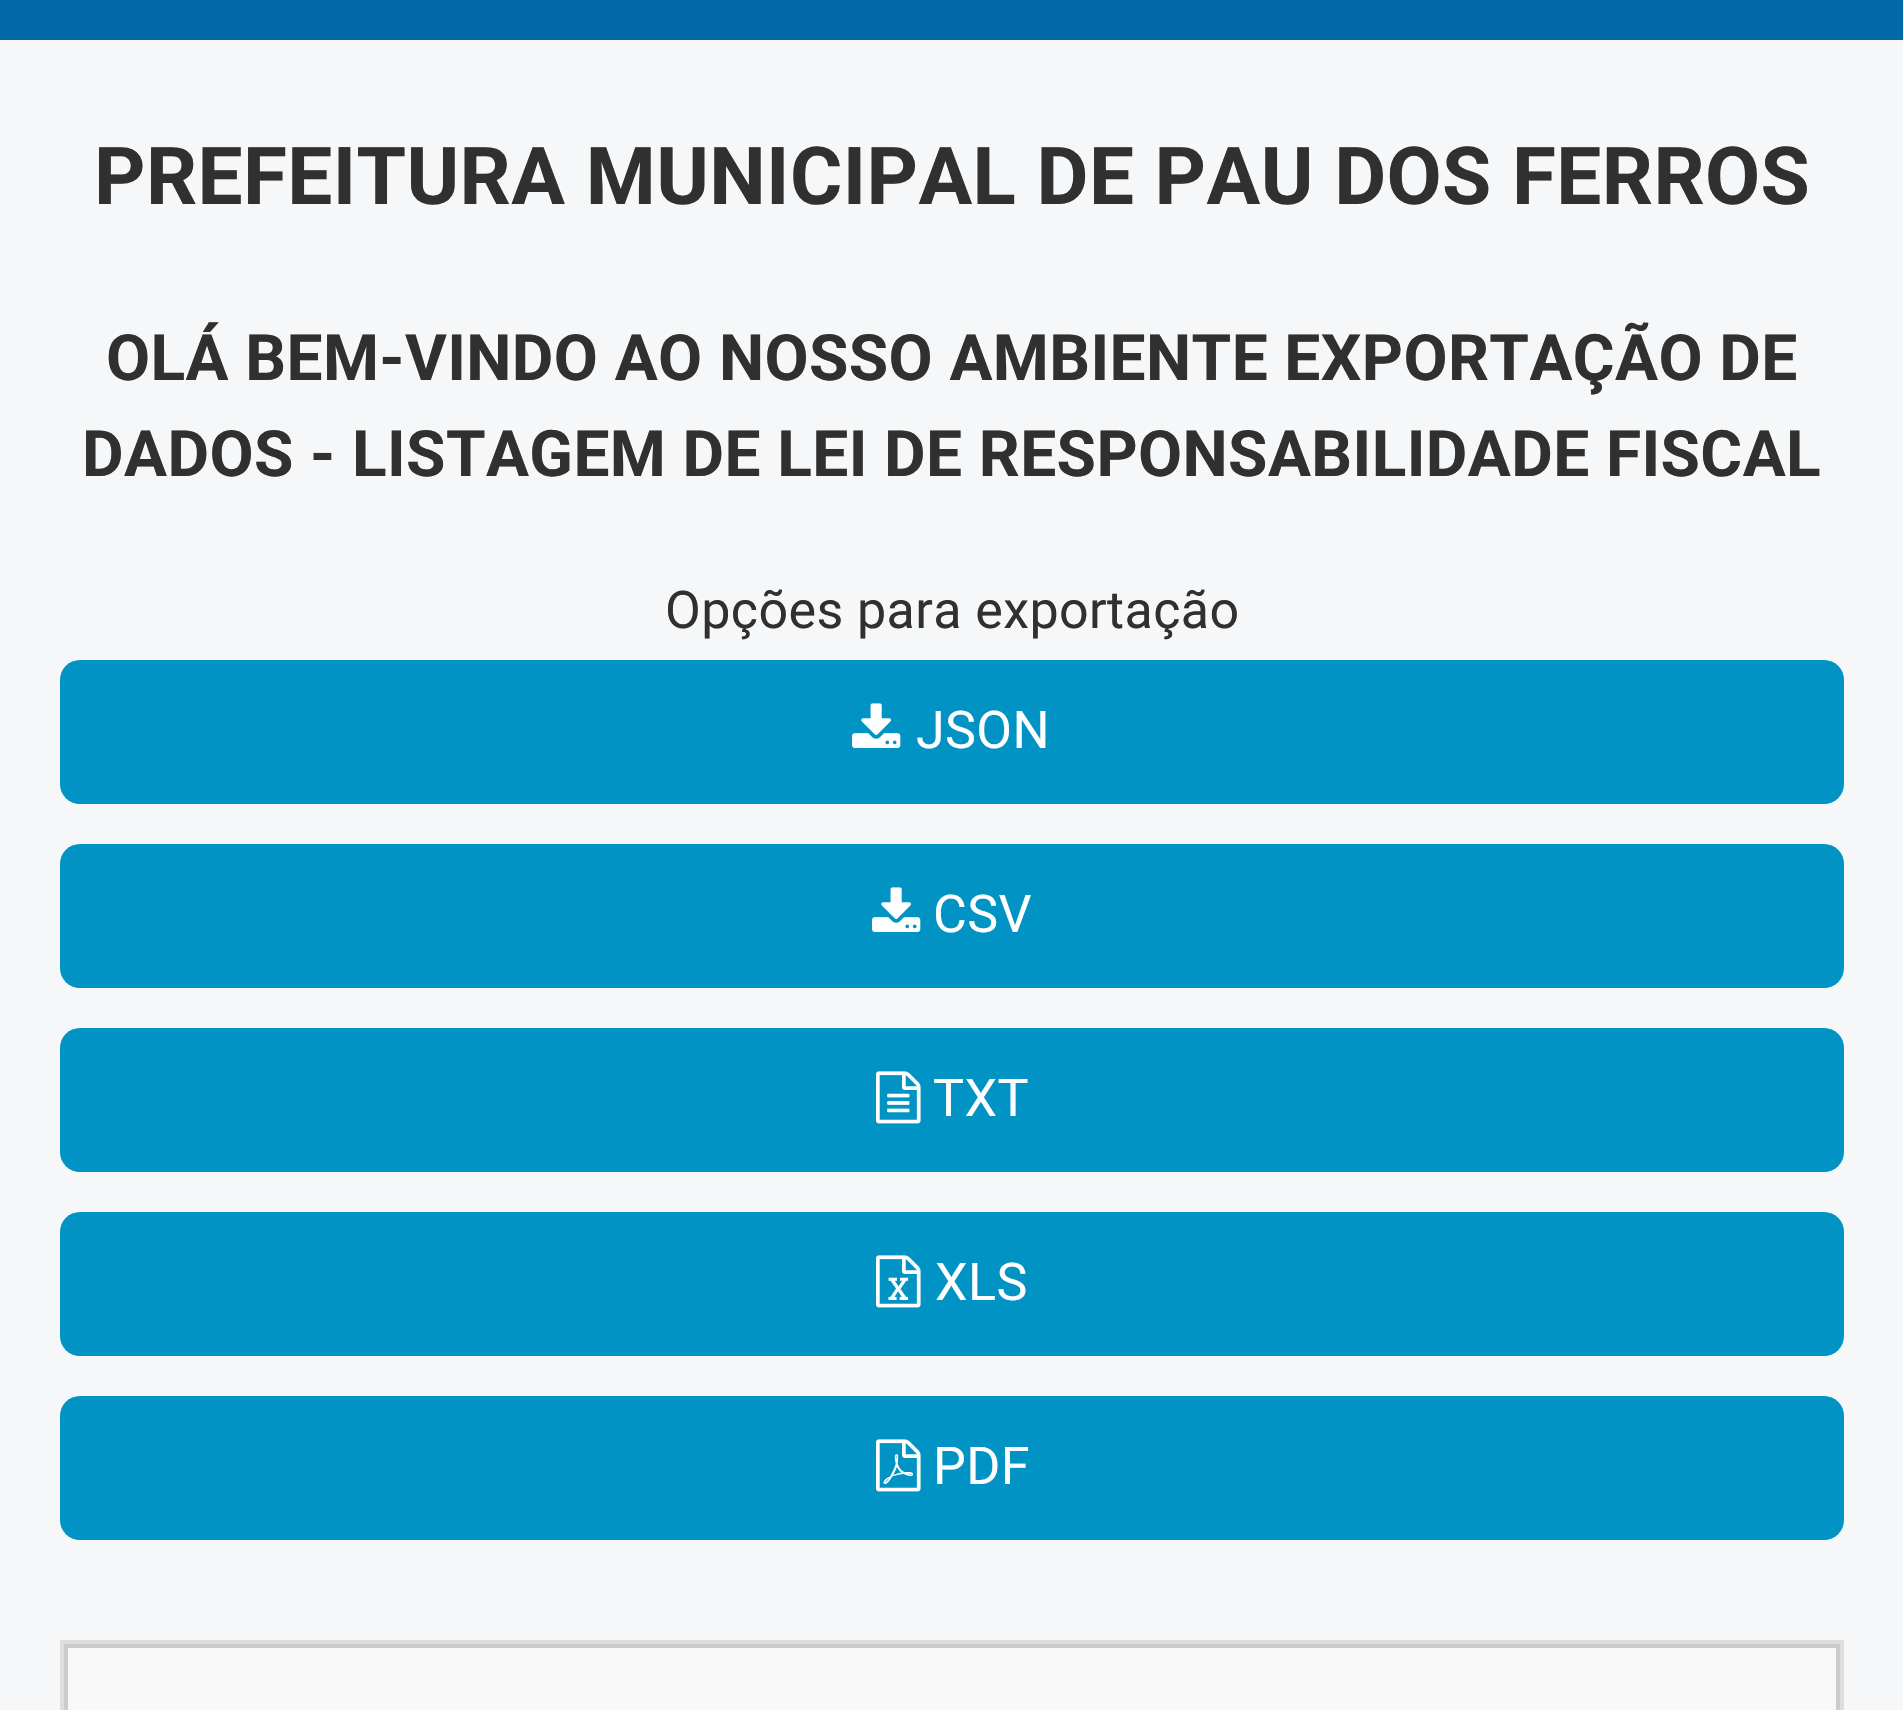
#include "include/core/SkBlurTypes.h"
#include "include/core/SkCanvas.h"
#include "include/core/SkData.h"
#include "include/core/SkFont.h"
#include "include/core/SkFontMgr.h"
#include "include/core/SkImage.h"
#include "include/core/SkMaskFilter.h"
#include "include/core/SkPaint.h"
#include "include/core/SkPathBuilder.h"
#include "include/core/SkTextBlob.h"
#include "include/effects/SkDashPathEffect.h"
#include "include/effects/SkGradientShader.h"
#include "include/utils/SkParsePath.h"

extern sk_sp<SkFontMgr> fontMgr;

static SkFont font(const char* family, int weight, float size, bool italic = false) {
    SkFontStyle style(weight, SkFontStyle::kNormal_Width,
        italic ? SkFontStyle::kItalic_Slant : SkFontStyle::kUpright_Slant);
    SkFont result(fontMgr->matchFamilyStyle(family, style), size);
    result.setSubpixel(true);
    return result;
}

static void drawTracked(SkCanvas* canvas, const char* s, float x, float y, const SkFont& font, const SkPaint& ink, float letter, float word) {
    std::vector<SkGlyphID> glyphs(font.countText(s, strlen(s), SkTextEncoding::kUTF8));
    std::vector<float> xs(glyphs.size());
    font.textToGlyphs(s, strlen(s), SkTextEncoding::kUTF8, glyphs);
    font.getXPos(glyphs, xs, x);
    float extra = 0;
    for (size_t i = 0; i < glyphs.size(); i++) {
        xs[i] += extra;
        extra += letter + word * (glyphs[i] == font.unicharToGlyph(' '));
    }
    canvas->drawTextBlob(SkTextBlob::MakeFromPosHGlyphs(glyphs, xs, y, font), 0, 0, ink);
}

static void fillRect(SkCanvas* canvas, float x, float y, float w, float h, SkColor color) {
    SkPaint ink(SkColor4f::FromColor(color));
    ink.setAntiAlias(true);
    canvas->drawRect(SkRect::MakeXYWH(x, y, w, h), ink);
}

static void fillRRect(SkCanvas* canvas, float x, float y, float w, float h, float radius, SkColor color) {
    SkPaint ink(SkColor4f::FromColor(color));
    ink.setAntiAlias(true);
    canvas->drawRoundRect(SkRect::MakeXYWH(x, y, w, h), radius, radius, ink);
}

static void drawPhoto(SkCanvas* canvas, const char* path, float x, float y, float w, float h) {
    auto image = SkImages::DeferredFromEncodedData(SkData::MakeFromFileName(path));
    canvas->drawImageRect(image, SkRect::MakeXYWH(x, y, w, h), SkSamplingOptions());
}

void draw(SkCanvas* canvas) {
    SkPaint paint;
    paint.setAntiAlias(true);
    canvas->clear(0xFFF6F7F8);
    fillRect(canvas, 0, 0, 1903, 40, 0xFF0069A6);
    SkFont font1 = font("Roboto", 700, 80);
    paint.setColor(0xFF303030);
    drawTracked(canvas, "PREFEITURA MUNICIPAL DE PAU DOS FERROS", 94, 204, font1, paint, 0.4f, 0);
    SkFont font2 = font("Roboto", 700, 64);
    drawTracked(canvas, "OLÁ BEM-VINDO AO NOSSO AMBIENTE EXPORTAÇÃO DE", 106, 380, font2, paint, 0.4f, 0);
    drawTracked(canvas, "DADOS - LISTAGEM DE LEI DE RESPONSABILIDADE FISCAL", 82, 476, font2, paint, 0.4f, 0);
    SkFont font3 = font("Roboto", 400, 52);
    drawTracked(canvas, "Opções para exportação", 665, 628, font3, paint, 0.4f, 0);
    fillRRect(canvas, 60, 660, 1784, 144, 20, 0xFF0093C4);
    drawPhoto(canvas, "assets/img1.png", 852, 703, 49, 45);
    paint.setColor(0xFFFFFFFF);
    drawTracked(canvas, "JSON", 916, 748, font3, paint, 0.4f, 0);
    fillRRect(canvas, 60, 844, 1784, 144, 20, 0xFF0093C4);
    drawPhoto(canvas, "assets/img1.png", 872, 887, 49, 45);
    drawTracked(canvas, "CSV", 933, 932, font3, paint, 0.4f, 0);
    fillRRect(canvas, 60, 1028, 1784, 144, 20, 0xFF0093C4);
    drawPhoto(canvas, "assets/img2.png", 876, 1071, 45, 53);
    drawTracked(canvas, "TXT", 933, 1116, font3, paint, 0.4f, 0);
    fillRRect(canvas, 60, 1212, 1784, 144, 20, 0xFF0093C4);
    drawPhoto(canvas, "assets/img3.png", 876, 1255, 45, 53);
    drawTracked(canvas, "XLS", 935, 1300, font3, paint, 0.4f, 0);
    fillRRect(canvas, 60, 1396, 1784, 144, 20, 0xFF0093C4);
    drawPhoto(canvas, "assets/img4.png", 876, 1439, 45, 53);
    drawTracked(canvas, "PDF", 933, 1484, font3, paint, 0.4f, 0);
    fillRect(canvas, 60, 1640, 1784, 4, 0xFFDDDDDD);
    fillRect(canvas, 1840, 1640, 4, 70, 0xFFDDDDDD);
    fillRect(canvas, 60, 1640, 4, 70, 0xFFDDDDDD);
    paint.setColor(0xFFF9F9F9);
    canvas->drawRect(SkRect::MakeXYWH(66, 1646, 1772, 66), paint);
    paint.setStroke(true);
    paint.setStrokeWidth(4);
    paint.setColor(0xFFCCCCCC);
    canvas->drawRect(SkRect::MakeXYWH(66, 1646, 1772, 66), paint);
}
